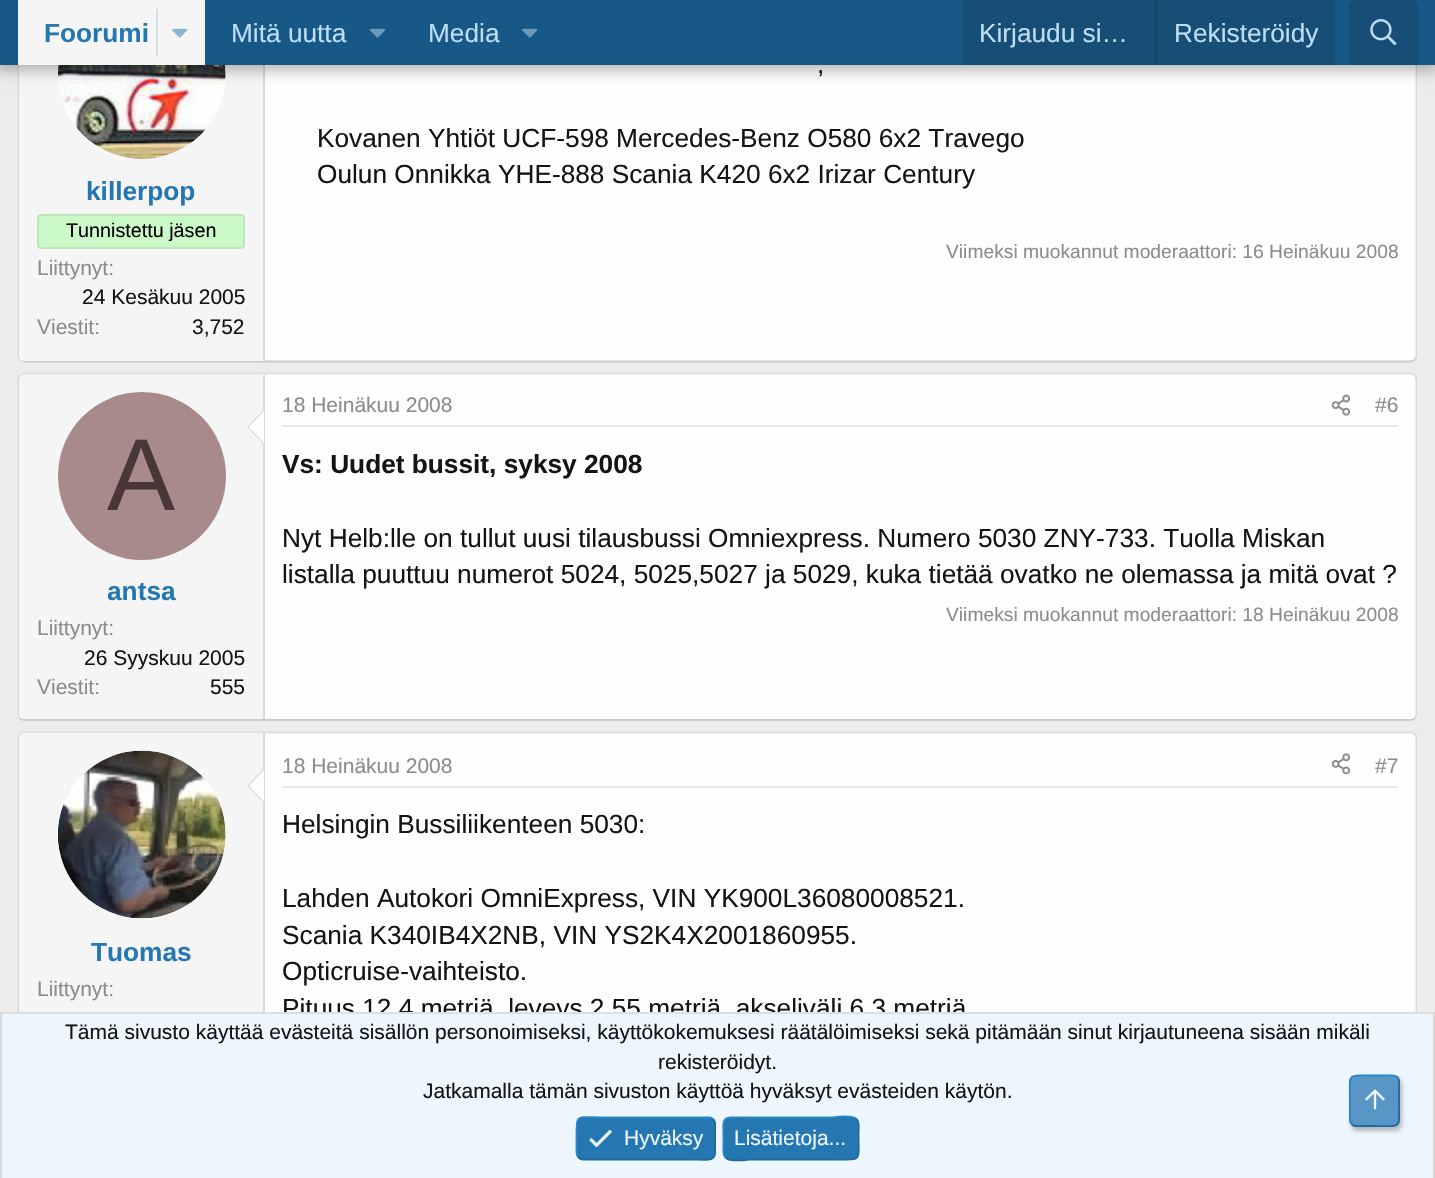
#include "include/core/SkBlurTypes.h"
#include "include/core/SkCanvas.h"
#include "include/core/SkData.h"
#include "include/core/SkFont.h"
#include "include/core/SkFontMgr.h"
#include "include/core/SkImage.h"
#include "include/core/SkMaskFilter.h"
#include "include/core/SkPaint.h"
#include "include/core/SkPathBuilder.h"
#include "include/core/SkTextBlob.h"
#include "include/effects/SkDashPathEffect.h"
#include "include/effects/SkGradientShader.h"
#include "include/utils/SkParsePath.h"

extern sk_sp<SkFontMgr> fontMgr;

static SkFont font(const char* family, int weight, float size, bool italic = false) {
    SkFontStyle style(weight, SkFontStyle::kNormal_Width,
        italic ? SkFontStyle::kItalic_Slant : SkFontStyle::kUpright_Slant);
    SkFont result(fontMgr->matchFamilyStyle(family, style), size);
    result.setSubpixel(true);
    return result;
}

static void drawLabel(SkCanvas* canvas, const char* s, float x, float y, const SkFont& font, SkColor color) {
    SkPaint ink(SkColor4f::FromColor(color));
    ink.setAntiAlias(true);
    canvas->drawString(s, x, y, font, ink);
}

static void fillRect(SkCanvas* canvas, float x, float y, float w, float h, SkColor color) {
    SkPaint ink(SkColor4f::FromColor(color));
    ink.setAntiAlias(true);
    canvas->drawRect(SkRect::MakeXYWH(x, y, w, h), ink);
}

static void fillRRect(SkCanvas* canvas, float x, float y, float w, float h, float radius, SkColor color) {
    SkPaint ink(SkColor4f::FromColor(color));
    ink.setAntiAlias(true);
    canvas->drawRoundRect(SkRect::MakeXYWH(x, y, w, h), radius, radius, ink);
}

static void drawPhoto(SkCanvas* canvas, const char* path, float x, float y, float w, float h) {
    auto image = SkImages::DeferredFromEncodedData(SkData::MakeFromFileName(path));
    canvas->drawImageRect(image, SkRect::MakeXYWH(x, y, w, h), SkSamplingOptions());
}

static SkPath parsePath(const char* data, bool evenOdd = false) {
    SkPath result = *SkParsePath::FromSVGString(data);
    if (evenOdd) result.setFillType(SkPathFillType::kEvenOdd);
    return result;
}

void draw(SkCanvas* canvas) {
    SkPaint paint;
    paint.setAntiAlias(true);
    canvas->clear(0xFFECECEC);
    fillRRect(canvas, 18, -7, 1400, 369, 7, 0xFFFEFEFE);
    paint.setStroke(true);
    paint.setStrokeWidth(1.8f);
    paint.setColor(0xFFD8D8D8);
    canvas->drawPath(parsePath("M1415-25.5C1416-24 1416.5-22.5 1416.5-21V355C1416.5 357 1416 358.5 1415 359.5"), paint);
    paint.setColor(0xFFCBCBCB);
    canvas->drawPath(parsePath("M1415 359.5C1413.5 360.5 1412 361.5 1410.5 361.5H24.5C23 361.5 21.5 360.5 20 359.5"), paint);
    paint.setColor(0xFFD8D8D8);
    canvas->drawPath(parsePath("M20 359.5C19 358.5 18.5 357 18.5 355V-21C18.5-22.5 19-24 20-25.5"), paint);
    paint.setStroke(false);
    paint.setColor(0xFFF5F5F5);
    canvas->drawPath(parsePath("M24-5H264V361H24C21 361 19 359 19 356V0C19-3 21-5 24-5Z"), paint);
    fillRect(canvas, 263, 65, 2, 296, 0xFFD8D8D8);
    paint.setColor(0xFFFEFEFE);
    canvas->drawCircle(142, 75, 84, paint);
    drawPhoto(canvas, "assets/img5.png", 58, 65, 168, 94);
    paint.setColor(0x4D000000);
    paint.setMaskFilter(SkMaskFilter::MakeBlur(kNormal_SkBlurStyle, 7));
    canvas->drawRect(SkRect::MakeXYWH(-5, -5, 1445, 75), paint);
    paint.setMaskFilter(nullptr);
    fillRect(canvas, 0, 0, 1435, 65, 0xFF185886);
    fillRect(canvas, 18, 0, 187, 65, 0xFFF5F5F5);
    SkFont font1 = font("Liberation Sans", 700, 26.25f);
    drawLabel(canvas, "Foorumi", 44, 42, font1, 0xFF2577B1);
    fillRect(canvas, 156, 9, 2, 47, 0xFFD1DFE9);
    drawPhoto(canvas, "assets/img1.png", 172, 28, 16, 10);
    SkFont font2 = font("Liberation Sans", 400, 26.25f);
    drawLabel(canvas, "Mitä uutta", 231, 42, font2, 0xFFBCDEF5);
    drawPhoto(canvas, "assets/img2.png", 369, 28, 16, 10);
    drawLabel(canvas, "Media", 428, 42, font2, 0xFFBCDEF5);
    drawPhoto(canvas, "assets/img3.png", 522, 28, 16, 10);
    fillRect(canvas, 963, 0, 372, 65, 0xFF174E75);
    drawLabel(canvas, "Kirjaudu si…", 979, 42, font2, 0xFFBCDEF5);
    fillRect(canvas, 1155, 0, 2, 65, 0xFF174566);
    drawLabel(canvas, "Rekisteröidy", 1174, 42, font2, 0xFFBCDEF5);
    paint.setColor(0xFF174E75);
    canvas->drawPath(parsePath("M1356 0H1411C1415 0 1418 3 1418 7V65H1349V7C1349 3 1352 0 1356 0Z"), paint);
    drawPhoto(canvas, "assets/img4.png", 1370, 19, 27, 27);
    drawLabel(canvas, "killerpop", 86, 200, font1, 0xFF2577B1);
    paint.setColor(0xFFCCF9C8);
    canvas->drawRoundRect(SkRect::MakeXYWH(38, 215, 206, 33), 3, 3, paint);
    paint.setStroke(true);
    paint.setStrokeWidth(2);
    paint.setColor(0xFFBEE8BA);
    canvas->drawRoundRect(SkRect::MakeXYWH(38, 215, 206, 33), 3, 3, paint);
    SkFont font3 = font("Liberation Sans", 400, 19.75f);
    drawLabel(canvas, "Tunnistettu jäsen", 66, 237, font3, 0xFF000000);
    SkFont font4 = font("Liberation Sans", 400, 21);
    drawLabel(canvas, "Liittynyt:", 37, 275, font4, 0xFF8C8C8C);
    drawLabel(canvas, "24 Kesäkuu 2005", 82, 304, font4, 0xFF141414);
    drawLabel(canvas, "Viestit:", 37, 334, font4, 0xFF8C8C8C);
    drawLabel(canvas, "3,752", 192, 334, font4, 0xFF141414);
    drawLabel(canvas, ",", 817, 73, font2, 0xFF141414);
    drawLabel(canvas, "Kovanen Yhtiöt UCF-598 Mercedes-Benz O580 6x2 Travego", 317, 147, font2, 0xFF141414);
    drawLabel(canvas, "Oulun Onnikka YHE-888 Scania K420 6x2 Irizar Century", 317, 183, font2, 0xFF141414);
    SkFont font5 = font("Liberation Sans", 400, 19.25f);
    drawLabel(canvas, "Viimeksi muokannut moderaattori: 16 Heinäkuu 2008", 946, 258, font5, 0xFF8C8C8C);
    fillRRect(canvas, 18, 373, 1400, 348, 7, 0xFFFEFEFE);
    paint.setStrokeWidth(1.8f);
    paint.setColor(0xFFDFDFDF);
    canvas->drawPath(parsePath("M20 375.5C21.5 374.5 23 373.5 24.5 373.5H1410.5C1412 373.5 1413.5 374.5 1415 375.5"), paint);
    paint.setColor(0xFFD8D8D8);
    canvas->drawPath(parsePath("M1415 375.5C1416 376.5 1416.5 378 1416.5 380V714C1416.5 715.5 1416 717 1415 718.5"), paint);
    paint.setColor(0xFFCBCBCB);
    canvas->drawPath(parsePath("M1415 718.5C1413.5 719.5 1412 720 1410.5 720H24.5C23 720 21.5 719.5 20 718.5"), paint);
    paint.setColor(0xFFD8D8D8);
    canvas->drawPath(parsePath("M20 718.5C19 717 18.5 715.5 18.5 714V380C18.5 378 19 376.5 20 375.5"), paint);
    paint.setStroke(false);
    paint.setColor(0xFFF5F5F5);
    canvas->drawPath(parsePath("M24 375H264V719H24C21 719 19 717 19 714V380C19 377 21 375 24 375Z"), paint);
    fillRect(canvas, 263, 375, 2, 344, 0xFFD8D8D8);
    paint.setColor(0xFFD8D8D8);
    canvas->drawPath(parsePath("M264 409.5V444.5L247 427Z"), paint);
    paint.setColor(0xFFFEFEFE);
    canvas->drawPath(parsePath("M264 411V443L248.5 427Z"), paint);
    paint.setColor(0xFFA88A8A);
    canvas->drawCircle(142, 476, 84, paint);
    SkFont font6 = font("Liberation Sans", 400, 102);
    drawLabel(canvas, "A", 107, 510, font6, 0xFF493636);
    drawLabel(canvas, "antsa", 107, 600, font1, 0xFF2577B1);
    drawLabel(canvas, "Liittynyt:", 37, 635, font4, 0xFF8C8C8C);
    drawLabel(canvas, "26 Syyskuu 2005", 84, 665, font4, 0xFF141414);
    drawLabel(canvas, "Viestit:", 37, 694, font4, 0xFF8C8C8C);
    drawLabel(canvas, "555", 210, 694, font4, 0xFF141414);
    fillRect(canvas, 282, 425, 1116, 2, 0xFFE7E7E7);
    drawLabel(canvas, "18 Heinäkuu 2008", 282, 412, font4, 0xFF8C8C8C);
    drawPhoto(canvas, "assets/img6.png", 1331, 394, 20, 22);
    drawLabel(canvas, "#6", 1375, 412, font4, 0xFF8C8C8C);
    drawLabel(canvas, "Vs: Uudet bussit, syksy 2008", 282, 473, font1, 0xFF141414);
    drawLabel(canvas, "Nyt Helb:lle on tullut uusi tilausbussi Omniexpress. Numero 5030 ZNY-733. Tuolla Miskan", 282, 547, font2, 0xFF141414);
    drawLabel(canvas, "listalla puuttuu numerot 5024, 5025,5027 ja 5029, kuka tietää ovatko ne olemassa ja mitä ovat ?", 282, 583, font2, 0xFF141414);
    drawLabel(canvas, "Viimeksi muokannut moderaattori: 18 Heinäkuu 2008", 946, 621, font5, 0xFF8C8C8C);
    fillRRect(canvas, 18, 732, 1400, 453, 7, 0xFFFEFEFE);
    paint.setStroke(true);
    paint.setColor(0xFFDFDFDF);
    canvas->drawPath(parsePath("M20 734C21.5 733 23 732.5 24.5 732.5H1410.5C1412 732.5 1413.5 733 1415 734"), paint);
    paint.setColor(0xFFD8D8D8);
    canvas->drawPath(parsePath("M1415 734C1416 735.5 1416.5 737 1416.5 738.5V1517C1416.5 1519 1416 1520.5 1415 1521.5"), paint);
    canvas->drawPath(parsePath("M20 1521.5C19 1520.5 18.5 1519 18.5 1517V738.5C18.5 737 19 735.5 20 734"), paint);
    paint.setStroke(false);
    paint.setColor(0xFFF5F5F5);
    canvas->drawPath(parsePath("M24 733H264V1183H24C21 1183 19 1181 19 1178V738C19 735 21 733 24 733Z"), paint);
    fillRect(canvas, 263, 733, 2, 279, 0xFFD8D8D8);
    paint.setColor(0xFFFEFEFE);
    canvas->drawCircle(142, 835, 84, paint);
    drawPhoto(canvas, "assets/img7.png", 58, 750, 168, 169);
    paint.setColor(0xFFD8D8D8);
    canvas->drawPath(parsePath("M264 768V803L247 786Z"), paint);
    paint.setColor(0xFFFEFEFE);
    canvas->drawPath(parsePath("M264 770V801.5L248.5 786Z"), paint);
    drawLabel(canvas, "Tuomas", 91, 961, font1, 0xFF2577B1);
    drawLabel(canvas, "Liittynyt:", 37, 996, font4, 0xFF8C8C8C);
    fillRect(canvas, 282, 786, 1116, 2, 0xFFE7E7E7);
    drawLabel(canvas, "18 Heinäkuu 2008", 282, 773, font4, 0xFF8C8C8C);
    drawPhoto(canvas, "assets/img8.png", 1331, 753, 20, 22);
    drawLabel(canvas, "#7", 1375, 773, font4, 0xFF8C8C8C);
    drawLabel(canvas, "Helsingin Bussiliikenteen 5030:", 282, 833, font2, 0xFF141414);
    drawLabel(canvas, "Lahden Autokori OmniExpress, VIN YK900L36080008521.", 282, 907, font2, 0xFF141414);
    drawLabel(canvas, "Scania K340IB4X2NB, VIN YS2K4X2001860955.", 282, 944, font2, 0xFF141414);
    drawLabel(canvas, "Opticruise-vaihteisto.", 282, 980, font2, 0xFF141414);
    drawLabel(canvas, "Pituus 12,4 metriä, leveys 2,55 metriä, akseliväli 6,3 metriä", 282, 1017, font2, 0xFF141414);
    fillRect(canvas, 2, 1014, 1431, 164, 0xFFEDF6FD);
    fillRect(canvas, 0, 1012, 1435, 2, 0xFFDFDFDF);
    fillRect(canvas, 1433, 1012, 2, 166, 0xFFD8D8D8);
    fillRect(canvas, 0, 1012, 2, 166, 0xFFD8D8D8);
    drawLabel(canvas, "Tämä sivusto käyttää evästeitä sisällön personoimiseksi, käyttökokemuksesi räätälöimiseksi sekä pitämään sinut kirjautuneena sisään mikäli", 65, 1039, font4, 0xFF141414);
    drawLabel(canvas, "rekisteröidyt.", 658, 1069, font4, 0xFF141414);
    drawLabel(canvas, "Jatkamalla tämän sivuston käyttöä hyväksyt evästeiden käytön.", 423, 1098, font4, 0xFF141414);
    fillRRect(canvas, 576, 1117, 140, 43, 7, 0xFF2577B1);
    paint.setStroke(true);
    paint.setColor(0xFF21699C);
    canvas->drawPath(parsePath("M713 1119C715.5 1121.5 715 1125.5 715 1128.5V1138.5C715 1164 716.5 1159.5 688 1159.5H583C581 1159.5 579.5 1158.5 578.5 1157.5"), paint);
    paint.setColor(0xFF2985C6);
    canvas->drawPath(parsePath("M578.5 1157.5C576 1155 576.5 1151.5 576.5 1148.5V1138.5C576.5 1112.5 575 1117.5 604 1117.5H709C710.5 1117.5 712 1118 713 1119"), paint);
    drawPhoto(canvas, "assets/img9.png", 589, 1129, 23, 19);
    drawLabel(canvas, "Hyväksy", 624, 1145, font4, 0xFFEDF6FD);
    fillRRect(canvas, 723, 1117, 136, 43, 7, 0xFF2577B1);
    paint.setColor(0xFF21699C);
    canvas->drawPath(parsePath("M856.5 1119C860 1122.5 858.5 1129.5 858.5 1133.5C858.5 1163 863 1159.5 832 1159.5H750C749.5 1159.5 730.5 1162.5 725.5 1157.5"), paint);
    paint.setColor(0xFF2985C6);
    canvas->drawPath(parsePath("M725.5 1157.5C722 1154 723.5 1147.5 723.5 1143.5C723.5 1113.5 719 1117.5 750 1117.5H832C832.5 1117.5 851.5 1114.5 856.5 1119"), paint);
    drawLabel(canvas, "Lisätietoja...", 734, 1145, font4, 0xFFEDF6FD);
    canvas->save();
    canvas->clipPath(parsePath("M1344 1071H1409V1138H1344ZM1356 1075H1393C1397 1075 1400 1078 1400 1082V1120C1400 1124 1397 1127 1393 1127H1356C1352 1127 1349 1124 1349 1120V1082C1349 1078 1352 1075 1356 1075Z", true), true);
    paint.setStroke(false);
    paint.setColor(0x40000000);
    paint.setMaskFilter(SkMaskFilter::MakeBlur(kNormal_SkBlurStyle, 2));
    canvas->drawRoundRect(SkRect::MakeXYWH(1351, 1078, 51, 53), 7, 7, paint);
    paint.setMaskFilter(nullptr);
    canvas->restore();
    fillRRect(canvas, 1349, 1075, 51, 52, 7, 0xBF2577B1);
    paint.setStroke(true);
    paint.setColor(0xFF21699C);
    canvas->drawPath(parsePath("M1397.5 1077C1400 1080 1399 1084.5 1399 1088V1101C1399 1129.5 1403 1126 1374.5 1126H1362.5C1359 1126 1354.5 1127 1352 1124.5"), paint);
    paint.setColor(0xFF2985C6);
    canvas->drawPath(parsePath("M1352 1124.5C1349 1121.5 1350 1117 1350 1113.5V1101C1350 1072 1346 1075.5 1374.5 1075.5H1387C1390 1075.5 1394.5 1074.5 1397.5 1077"), paint);
    drawPhoto(canvas, "assets/img10.png", 1365, 1089, 20, 21);
}
